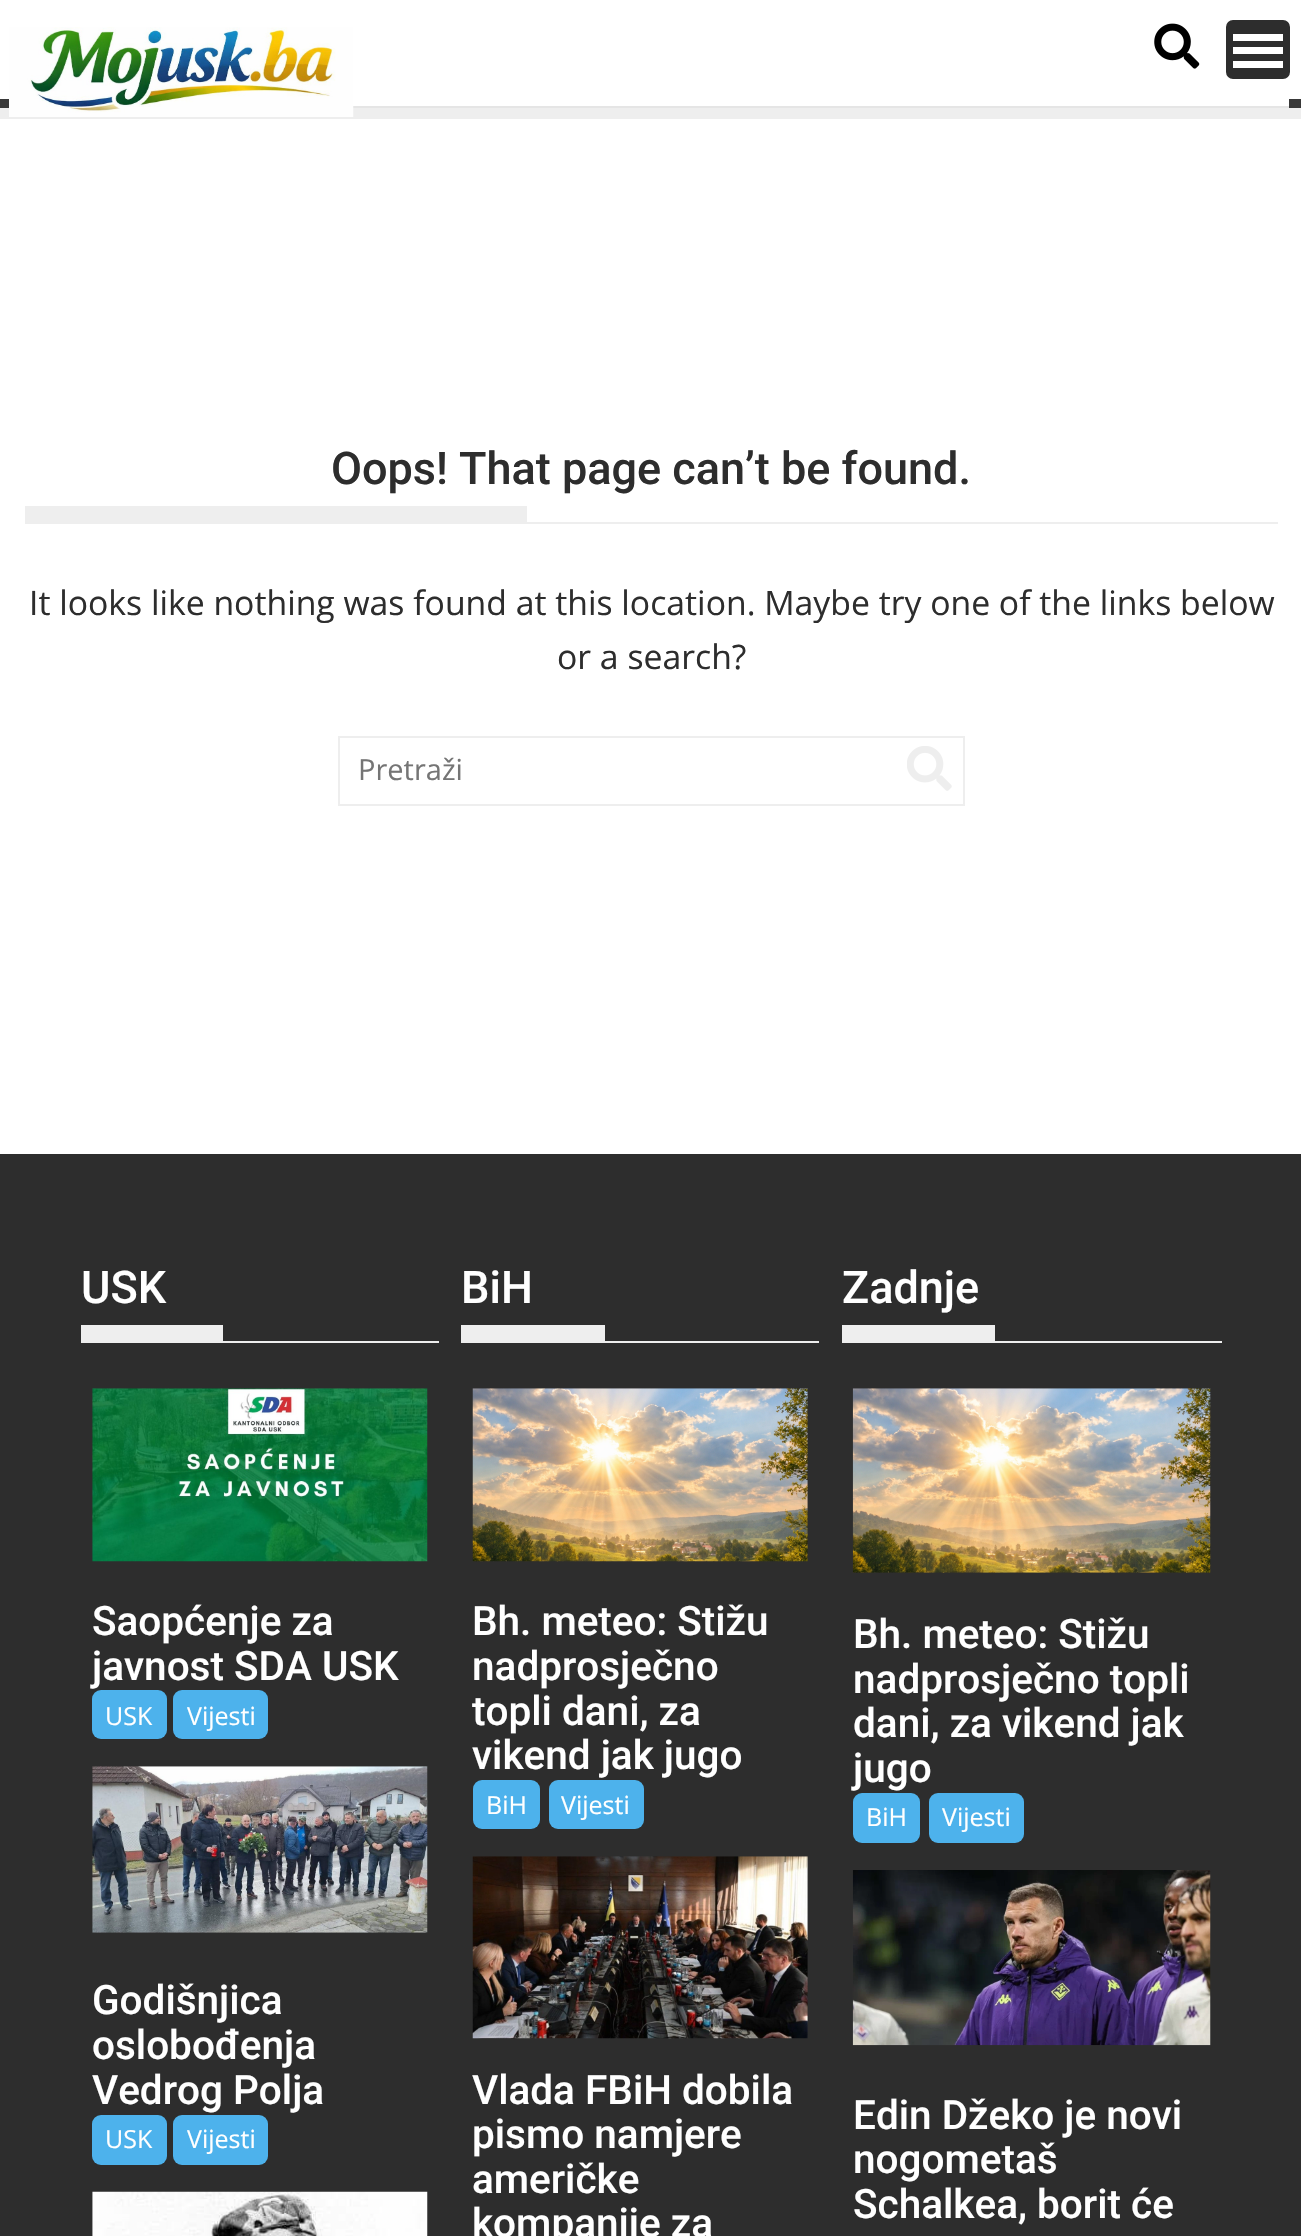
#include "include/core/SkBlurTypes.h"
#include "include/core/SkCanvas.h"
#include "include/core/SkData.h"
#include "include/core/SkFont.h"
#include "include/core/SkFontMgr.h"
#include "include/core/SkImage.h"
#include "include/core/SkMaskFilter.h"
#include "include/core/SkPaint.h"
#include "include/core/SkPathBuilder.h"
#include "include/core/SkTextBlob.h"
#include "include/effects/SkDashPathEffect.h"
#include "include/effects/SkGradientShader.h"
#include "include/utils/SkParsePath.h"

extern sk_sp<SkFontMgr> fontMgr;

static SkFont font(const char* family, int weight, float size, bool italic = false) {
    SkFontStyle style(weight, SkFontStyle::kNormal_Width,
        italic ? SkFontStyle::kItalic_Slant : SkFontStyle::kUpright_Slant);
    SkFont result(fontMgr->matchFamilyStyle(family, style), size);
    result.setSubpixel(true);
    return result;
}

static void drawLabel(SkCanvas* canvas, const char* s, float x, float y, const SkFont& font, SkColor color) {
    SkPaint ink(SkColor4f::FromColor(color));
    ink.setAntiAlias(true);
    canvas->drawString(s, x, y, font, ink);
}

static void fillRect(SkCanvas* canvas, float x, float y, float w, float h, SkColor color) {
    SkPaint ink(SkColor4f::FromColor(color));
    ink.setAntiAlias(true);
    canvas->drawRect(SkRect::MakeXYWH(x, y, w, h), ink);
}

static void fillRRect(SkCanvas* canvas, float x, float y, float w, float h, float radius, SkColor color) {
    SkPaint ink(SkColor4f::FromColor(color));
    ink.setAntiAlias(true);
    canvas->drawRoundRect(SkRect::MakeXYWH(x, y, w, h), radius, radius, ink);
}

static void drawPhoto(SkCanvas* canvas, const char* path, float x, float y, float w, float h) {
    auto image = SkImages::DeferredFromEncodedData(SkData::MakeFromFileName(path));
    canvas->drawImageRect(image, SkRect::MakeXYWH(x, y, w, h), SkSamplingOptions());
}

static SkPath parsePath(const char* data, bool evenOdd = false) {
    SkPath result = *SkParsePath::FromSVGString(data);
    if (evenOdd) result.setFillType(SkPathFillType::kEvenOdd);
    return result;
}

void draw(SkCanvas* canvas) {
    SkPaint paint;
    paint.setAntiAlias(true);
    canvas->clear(0xFFFFFFFF);
    canvas->save();
    canvas->clipRect(SkRect::MakeXYWH(0, 0, 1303, 108));
    paint.setColor(0xFF393939);
    canvas->drawPath(parsePath("M-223-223H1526V331H-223ZM-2-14H1300C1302-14 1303-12 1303-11V97C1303 98 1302 99 1300 99H-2C-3 99-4 98-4 97V-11C-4-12-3-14-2-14Z", true), paint);
    canvas->restore();
    fillRect(canvas, 0, 108, 1301, 11, 0xFFEEEEEE);
    paint.setColor(0xFF2D2D2D);
    canvas->drawRoundRect(SkRect::MakeXYWH(1225, 19, 66, 61), 8, 8, paint);
    paint.setStroke(true);
    paint.setStrokeWidth(2);
    paint.setColor(0xFFFFFFFF);
    canvas->drawRoundRect(SkRect::MakeXYWH(1225, 19, 66, 61), 8, 8, paint);
    fillRect(canvas, 1233, 61, 50, 7, 0xFFFFFFFF);
    fillRect(canvas, 1233, 47, 50, 7, 0xFFFFFFFF);
    fillRect(canvas, 1233, 34, 50, 7, 0xFFFFFFFF);
    fillRect(canvas, 14, 99, 1275, 7, 0xFFFFFFFF);
    fillRect(canvas, 353, 106, 936, 2, 0xFFE5E5E5);
    drawPhoto(canvas, "assets/img1.png", 9, 27, 345, 90);
    drawPhoto(canvas, "assets/img2.png", 1154, 23, 46, 46);
    fillRect(canvas, 25, 522, 1253, 2, 0xFFEEEEEE);
    SkFont font1 = font("Roboto", 500, 45);
    drawLabel(canvas, "Oops! That page can’t be found.", 331, 484, font1, 0xFF2D2D2D);
    fillRect(canvas, 25, 506, 502, 16, 0xFFEEEEEE);
    SkFont font2 = font("Open Sans", 400, 33.75f);
    drawLabel(canvas, "It looks like nothing was found at this location. Maybe try one of the links below", 29, 615, font2, 0xFF2D2D2D);
    drawLabel(canvas, "or a search?", 557, 669, font2, 0xFF2D2D2D);
    paint.setColor(0xFFEEEEEE);
    canvas->drawRect(SkRect::MakeXYWH(339, 737, 625, 68), paint);
    SkFont font3 = font("Open Sans", 400, 29);
    drawLabel(canvas, "Pretraži", 358, 780, font3, 0xFF757575);
    drawPhoto(canvas, "assets/img3.png", 907, 746, 45, 45);
    fillRect(canvas, 0, 1154, 1301, 1082, 0xFF2D2D2D);
    fillRect(canvas, 81, 1341, 358, 2, 0xFFEEEEEE);
    drawLabel(canvas, "USK", 81, 1303, font1, 0xFFFFFFFF);
    fillRect(canvas, 81, 1325, 142, 16, 0xFFEEEEEE);
    drawPhoto(canvas, "assets/img4.png", 92, 1388, 336, 174);
    SkFont font4 = font("Roboto", 500, 40.5f);
    drawLabel(canvas, "Saopćenje za", 92, 1635, font4, 0xFFFFFFFF);
    drawLabel(canvas, "javnost SDA USK", 92, 1680, font4, 0xFFFFFFFF);
    fillRRect(canvas, 92, 1690, 75, 49, 9, 0xFF4DB2EC);
    SkFont font5 = font("Open Sans", 400, 25);
    drawLabel(canvas, "USK", 105, 1725, font5, 0xFFFFFFFF);
    fillRRect(canvas, 173, 1690, 95, 49, 9, 0xFF4DB2EC);
    drawLabel(canvas, "Vijesti", 187, 1725, font5, 0xFFFFFFFF);
    drawPhoto(canvas, "assets/img5.png", 92, 1766, 336, 167);
    drawLabel(canvas, "Godišnjica", 92, 2014, font4, 0xFFFFFFFF);
    drawLabel(canvas, "oslobođenja", 92, 2059, font4, 0xFFFFFFFF);
    drawLabel(canvas, "Vedrog Polja", 92, 2104, font4, 0xFFFFFFFF);
    fillRRect(canvas, 92, 2115, 75, 50, 9, 0xFF4DB2EC);
    drawLabel(canvas, "USK", 105, 2148, font5, 0xFFFFFFFF);
    fillRRect(canvas, 173, 2115, 95, 50, 9, 0xFF4DB2EC);
    drawLabel(canvas, "Vijesti", 187, 2148, font5, 0xFFFFFFFF);
    drawPhoto(canvas, "assets/img6.png", 92, 2191, 336, 45);
    fillRect(canvas, 461, 1341, 358, 2, 0xFFEEEEEE);
    drawLabel(canvas, "BiH", 461, 1303, font1, 0xFFFFFFFF);
    fillRect(canvas, 461, 1325, 144, 16, 0xFFEEEEEE);
    drawPhoto(canvas, "assets/img7.png", 472, 1388, 336, 174);
    drawLabel(canvas, "Bh. meteo: Stižu", 472, 1635, font4, 0xFFFFFFFF);
    drawLabel(canvas, "nadprosječno", 472, 1680, font4, 0xFFFFFFFF);
    drawLabel(canvas, "topli dani, za", 472, 1725, font4, 0xFFFFFFFF);
    drawLabel(canvas, "vikend jak jugo", 472, 1769, font4, 0xFFFFFFFF);
    fillRRect(canvas, 473, 1780, 67, 49, 9, 0xFF4DB2EC);
    drawLabel(canvas, "BiH", 486, 1814, font5, 0xFFFFFFFF);
    fillRRect(canvas, 549, 1780, 95, 49, 9, 0xFF4DB2EC);
    drawLabel(canvas, "Vijesti", 561, 1814, font5, 0xFFFFFFFF);
    drawPhoto(canvas, "assets/img8.png", 472, 1856, 336, 183);
    drawLabel(canvas, "Vlada FBiH dobila", 472, 2104, font4, 0xFFFFFFFF);
    drawLabel(canvas, "pismo namjere", 472, 2148, font4, 0xFFFFFFFF);
    drawLabel(canvas, "američke", 472, 2193, font4, 0xFFFFFFFF);
    drawLabel(canvas, "kompanije za", 472, 2237, font4, 0xFFFFFFFF);
    fillRect(canvas, 842, 1341, 380, 2, 0xFFEEEEEE);
    drawLabel(canvas, "Zadnje", 842, 1303, font1, 0xFFFFFFFF);
    fillRect(canvas, 842, 1325, 153, 16, 0xFFEEEEEE);
    drawPhoto(canvas, "assets/img9.png", 852, 1388, 359, 185);
    drawLabel(canvas, "Bh. meteo: Stižu", 853, 1648, font4, 0xFFFFFFFF);
    drawLabel(canvas, "nadprosječno topli", 853, 1693, font4, 0xFFFFFFFF);
    drawLabel(canvas, "dani, za vikend jak", 853, 1737, font4, 0xFFFFFFFF);
    drawLabel(canvas, "jugo", 853, 1782, font4, 0xFFFFFFFF);
    fillRRect(canvas, 853, 1793, 67, 50, 9, 0xFF4DB2EC);
    drawLabel(canvas, "BiH", 866, 1826, font5, 0xFFFFFFFF);
    fillRRect(canvas, 929, 1793, 95, 50, 9, 0xFF4DB2EC);
    drawLabel(canvas, "Vijesti", 942, 1826, font5, 0xFFFFFFFF);
    drawPhoto(canvas, "assets/img10.png", 852, 1870, 359, 176);
    drawLabel(canvas, "Edin Džeko je novi", 853, 2129, font4, 0xFFFFFFFF);
    drawLabel(canvas, "nogometaš", 853, 2173, font4, 0xFFFFFFFF);
    drawLabel(canvas, "Schalkea, borit će", 853, 2218, font4, 0xFFFFFFFF);
}
